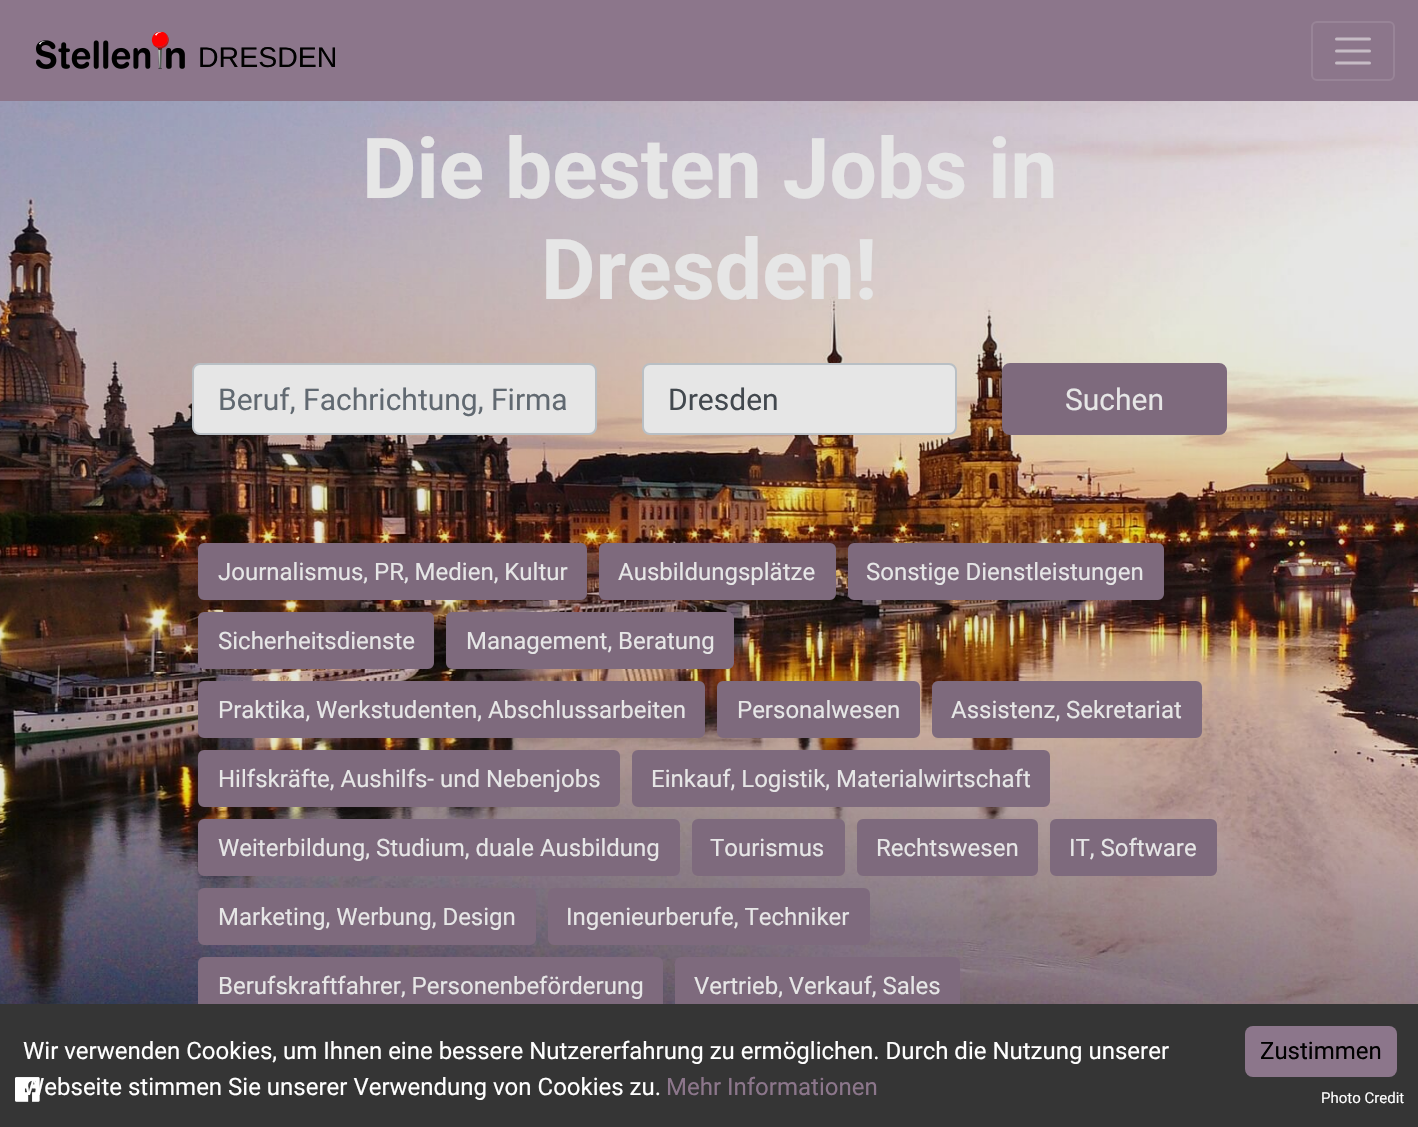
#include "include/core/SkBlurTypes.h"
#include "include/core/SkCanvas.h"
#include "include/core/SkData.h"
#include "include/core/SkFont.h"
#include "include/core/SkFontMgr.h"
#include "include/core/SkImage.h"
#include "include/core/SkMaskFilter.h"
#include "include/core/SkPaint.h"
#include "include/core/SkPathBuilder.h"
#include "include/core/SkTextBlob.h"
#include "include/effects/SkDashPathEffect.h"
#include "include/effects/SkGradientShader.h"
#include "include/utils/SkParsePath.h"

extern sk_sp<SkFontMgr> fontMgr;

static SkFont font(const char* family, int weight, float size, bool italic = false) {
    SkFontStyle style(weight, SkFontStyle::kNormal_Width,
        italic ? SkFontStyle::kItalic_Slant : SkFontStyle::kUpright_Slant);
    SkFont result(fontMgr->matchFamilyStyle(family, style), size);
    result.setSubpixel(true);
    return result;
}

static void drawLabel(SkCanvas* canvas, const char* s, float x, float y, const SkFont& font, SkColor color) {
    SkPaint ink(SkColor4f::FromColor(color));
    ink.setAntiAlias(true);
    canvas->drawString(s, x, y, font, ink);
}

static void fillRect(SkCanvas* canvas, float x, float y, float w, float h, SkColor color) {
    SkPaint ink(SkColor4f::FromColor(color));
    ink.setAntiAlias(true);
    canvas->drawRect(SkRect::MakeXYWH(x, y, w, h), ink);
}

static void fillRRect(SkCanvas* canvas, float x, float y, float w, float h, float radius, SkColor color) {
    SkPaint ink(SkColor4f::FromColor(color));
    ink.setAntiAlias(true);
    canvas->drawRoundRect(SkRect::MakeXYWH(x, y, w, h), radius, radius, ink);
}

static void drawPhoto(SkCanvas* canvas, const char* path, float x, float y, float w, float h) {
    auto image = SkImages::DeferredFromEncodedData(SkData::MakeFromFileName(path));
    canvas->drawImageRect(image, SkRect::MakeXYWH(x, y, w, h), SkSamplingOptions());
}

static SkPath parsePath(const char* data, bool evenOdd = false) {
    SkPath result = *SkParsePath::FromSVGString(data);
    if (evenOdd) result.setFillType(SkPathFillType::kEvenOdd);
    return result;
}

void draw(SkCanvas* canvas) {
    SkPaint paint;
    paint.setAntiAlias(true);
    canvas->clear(0xFFFFFFFF);
    fillRect(canvas, 0, 0, 1418, 101, 0xFF8C768B);
    drawPhoto(canvas, "assets/img1.png", 36, 32, 149, 37);
    SkFont font1 = font("Liberation Sans", 400, 28.5f);
    drawLabel(canvas, "DRESDEN", 198, 67, font1, 0xFF000000);
    paint.setStroke(true);
    paint.setStrokeWidth(2);
    paint.setColor(0xFF988497);
    canvas->drawRoundRect(SkRect::MakeXYWH(1312, 22, 82, 58), 5, 5, paint);
    paint.setStrokeWidth(3);
    paint.setStrokeCap(SkPaint::kRound_Cap);
    paint.setColor(0xFFC6BBC5);
    canvas->drawPath(parsePath("M1336.5 39H1369.5M1336.5 51H1369.5M1336.5 63H1369.5"), paint);
    drawPhoto(canvas, "assets/img2.png", 0, 101, 1418, 903);
    paint.setStroke(false);
    paint.setColor(0xFF7E6A7D);
    canvas->drawRoundRect(SkRect::MakeXYWH(199, 958, 463, 55), 5, 5, paint);
    paint.setStroke(true);
    paint.setStrokeWidth(2);
    paint.setStrokeCap(SkPaint::kButt_Cap);
    canvas->drawRoundRect(SkRect::MakeXYWH(199, 958, 463, 55), 5, 5, paint);
    paint.setStroke(false);
    canvas->drawRoundRect(SkRect::MakeXYWH(676, 958, 283, 55), 5, 5, paint);
    paint.setStroke(true);
    canvas->drawRoundRect(SkRect::MakeXYWH(676, 958, 283, 55), 5, 5, paint);
    fillRect(canvas, 0, 1004, 1418, 123, 0xFF353535);
    SkFont font2 = font("Roboto", 400, 24);
    drawLabel(canvas, "Wir verwenden Cookies, um Ihnen eine bessere Nutzererfahrung zu ermöglichen. Durch die Nutzung unserer", 23, 1059, font2, 0xFFFFFFFF);
    drawLabel(canvas, "Webseite stimmen Sie unserer Verwendung von Cookies zu.", 23, 1095, font2, 0xFFFFFFFF);
    drawLabel(canvas, "Mehr Informationen", 666, 1095, font2, 0xFF8C768B);
    fillRRect(canvas, 1245, 1026, 152, 51, 8, 0xFF8C768B);
    drawLabel(canvas, "Zustimmen", 1260, 1059, font2, 0xFF000000);
    SkFont font3 = font("Roboto", 700, 84);
    drawLabel(canvas, "Die besten Jobs in", 362, 198, font3, 0xFFE6E6E6);
    drawLabel(canvas, "Dresden!", 541, 299, font3, 0xFFE6E6E6);
    paint.setStroke(false);
    paint.setColor(0xFFE6E6E6);
    canvas->drawRoundRect(SkRect::MakeXYWH(193, 364, 403, 70), 7, 7, paint);
    paint.setStroke(true);
    paint.setColor(0xFFB9BFC4);
    canvas->drawRoundRect(SkRect::MakeXYWH(193, 364, 403, 70), 7, 7, paint);
    SkFont font4 = font("Roboto", 400, 30);
    drawLabel(canvas, "Beruf, Fachrichtung, Firma", 218, 410, font4, 0xFF616971);
    paint.setStroke(false);
    paint.setColor(0xFFE6E6E6);
    canvas->drawRoundRect(SkRect::MakeXYWH(643, 364, 313, 70), 7, 7, paint);
    paint.setStroke(true);
    paint.setColor(0xFFB9BFC4);
    canvas->drawRoundRect(SkRect::MakeXYWH(643, 364, 313, 70), 7, 7, paint);
    drawLabel(canvas, "Dresden", 668, 410, font4, 0xFF42484E);
    paint.setStroke(false);
    paint.setColor(0xFF7E6A7D);
    canvas->drawRoundRect(SkRect::MakeXYWH(1003, 364, 223, 70), 7, 7, paint);
    paint.setStroke(true);
    canvas->drawRoundRect(SkRect::MakeXYWH(1003, 364, 223, 70), 7, 7, paint);
    drawLabel(canvas, "Suchen", 1065, 410, font4, 0xFFE6E6E6);
    paint.setStroke(false);
    canvas->drawRoundRect(SkRect::MakeXYWH(199, 544, 387, 55), 5, 5, paint);
    paint.setStroke(true);
    canvas->drawRoundRect(SkRect::MakeXYWH(199, 544, 387, 55), 5, 5, paint);
    drawLabel(canvas, "Journalismus, PR, Medien, Kultur", 218, 580, font2, 0xFFE6E6E6);
    paint.setStroke(false);
    canvas->drawRoundRect(SkRect::MakeXYWH(600, 544, 235, 55), 5, 5, paint);
    paint.setStroke(true);
    canvas->drawRoundRect(SkRect::MakeXYWH(600, 544, 235, 55), 5, 5, paint);
    drawLabel(canvas, "Ausbildungsplätze", 618, 580, font2, 0xFFE6E6E6);
    paint.setStroke(false);
    canvas->drawRoundRect(SkRect::MakeXYWH(849, 544, 314, 55), 5, 5, paint);
    paint.setStroke(true);
    canvas->drawRoundRect(SkRect::MakeXYWH(849, 544, 314, 55), 5, 5, paint);
    drawLabel(canvas, "Sonstige Dienstleistungen", 866, 580, font2, 0xFFE6E6E6);
    paint.setStroke(false);
    canvas->drawRoundRect(SkRect::MakeXYWH(199, 613, 234, 55), 5, 5, paint);
    paint.setStroke(true);
    canvas->drawRoundRect(SkRect::MakeXYWH(199, 613, 234, 55), 5, 5, paint);
    drawLabel(canvas, "Sicherheitsdienste", 218, 649, font2, 0xFFE6E6E6);
    paint.setStroke(false);
    canvas->drawRoundRect(SkRect::MakeXYWH(447, 613, 286, 55), 5, 5, paint);
    paint.setStroke(true);
    canvas->drawRoundRect(SkRect::MakeXYWH(447, 613, 286, 55), 5, 5, paint);
    drawLabel(canvas, "Management, Beratung", 466, 649, font2, 0xFFE6E6E6);
    paint.setStroke(false);
    canvas->drawRoundRect(SkRect::MakeXYWH(199, 682, 505, 55), 5, 5, paint);
    paint.setStroke(true);
    canvas->drawRoundRect(SkRect::MakeXYWH(199, 682, 505, 55), 5, 5, paint);
    drawLabel(canvas, "Praktika, Werkstudenten, Abschlussarbeiten", 218, 718, font2, 0xFFE6E6E6);
    paint.setStroke(false);
    canvas->drawRoundRect(SkRect::MakeXYWH(718, 682, 201, 55), 5, 5, paint);
    paint.setStroke(true);
    canvas->drawRoundRect(SkRect::MakeXYWH(718, 682, 201, 55), 5, 5, paint);
    drawLabel(canvas, "Personalwesen", 737, 718, font2, 0xFFE6E6E6);
    paint.setStroke(false);
    canvas->drawRoundRect(SkRect::MakeXYWH(933, 682, 268, 55), 5, 5, paint);
    paint.setStroke(true);
    canvas->drawRoundRect(SkRect::MakeXYWH(933, 682, 268, 55), 5, 5, paint);
    drawLabel(canvas, "Assistenz, Sekretariat", 951, 718, font2, 0xFFE6E6E6);
    paint.setStroke(false);
    canvas->drawRoundRect(SkRect::MakeXYWH(199, 751, 420, 55), 5, 5, paint);
    paint.setStroke(true);
    canvas->drawRoundRect(SkRect::MakeXYWH(199, 751, 420, 55), 5, 5, paint);
    drawLabel(canvas, "Hilfskräfte, Aushilfs- und Nebenjobs", 218, 787, font2, 0xFFE6E6E6);
    paint.setStroke(false);
    canvas->drawRoundRect(SkRect::MakeXYWH(633, 751, 416, 55), 5, 5, paint);
    paint.setStroke(true);
    canvas->drawRoundRect(SkRect::MakeXYWH(633, 751, 416, 55), 5, 5, paint);
    drawLabel(canvas, "Einkauf, Logistik, Materialwirtschaft", 651, 787, font2, 0xFFE6E6E6);
    paint.setStroke(false);
    canvas->drawRoundRect(SkRect::MakeXYWH(199, 820, 480, 55), 5, 5, paint);
    paint.setStroke(true);
    canvas->drawRoundRect(SkRect::MakeXYWH(199, 820, 480, 55), 5, 5, paint);
    drawLabel(canvas, "Weiterbildung, Studium, duale Ausbildung", 218, 856, font2, 0xFFE6E6E6);
    paint.setStroke(false);
    canvas->drawRoundRect(SkRect::MakeXYWH(693, 820, 151, 55), 5, 5, paint);
    paint.setStroke(true);
    canvas->drawRoundRect(SkRect::MakeXYWH(693, 820, 151, 55), 5, 5, paint);
    drawLabel(canvas, "Tourismus", 710, 856, font2, 0xFFE6E6E6);
    paint.setStroke(false);
    canvas->drawRoundRect(SkRect::MakeXYWH(858, 820, 179, 55), 5, 5, paint);
    paint.setStroke(true);
    canvas->drawRoundRect(SkRect::MakeXYWH(858, 820, 179, 55), 5, 5, paint);
    drawLabel(canvas, "Rechtswesen", 876, 856, font2, 0xFFE6E6E6);
    paint.setStroke(false);
    canvas->drawRoundRect(SkRect::MakeXYWH(1051, 820, 165, 55), 5, 5, paint);
    paint.setStroke(true);
    canvas->drawRoundRect(SkRect::MakeXYWH(1051, 820, 165, 55), 5, 5, paint);
    drawLabel(canvas, "IT, Software", 1069, 856, font2, 0xFFE6E6E6);
    paint.setStroke(false);
    canvas->drawRoundRect(SkRect::MakeXYWH(199, 889, 336, 55), 5, 5, paint);
    paint.setStroke(true);
    canvas->drawRoundRect(SkRect::MakeXYWH(199, 889, 336, 55), 5, 5, paint);
    drawLabel(canvas, "Marketing, Werbung, Design", 218, 925, font2, 0xFFE6E6E6);
    paint.setStroke(false);
    canvas->drawRoundRect(SkRect::MakeXYWH(549, 889, 320, 55), 5, 5, paint);
    paint.setStroke(true);
    canvas->drawRoundRect(SkRect::MakeXYWH(549, 889, 320, 55), 5, 5, paint);
    drawLabel(canvas, "Ingenieurberufe, Techniker", 566, 925, font2, 0xFFE6E6E6);
    drawLabel(canvas, "Berufskraftfahrer, Personenbeförderung", 218, 994, font2, 0xFFE6E6E6);
    drawLabel(canvas, "Vertrieb, Verkauf, Sales", 694, 994, font2, 0xFFE6E6E6);
    drawPhoto(canvas, "assets/img3.png", 15, 1077, 25, 25);
    SkFont font5 = font("Roboto", 400, 15);
    drawLabel(canvas, "Photo Credit", 1321, 1103, font5, 0xFFFFFFFF);
}
